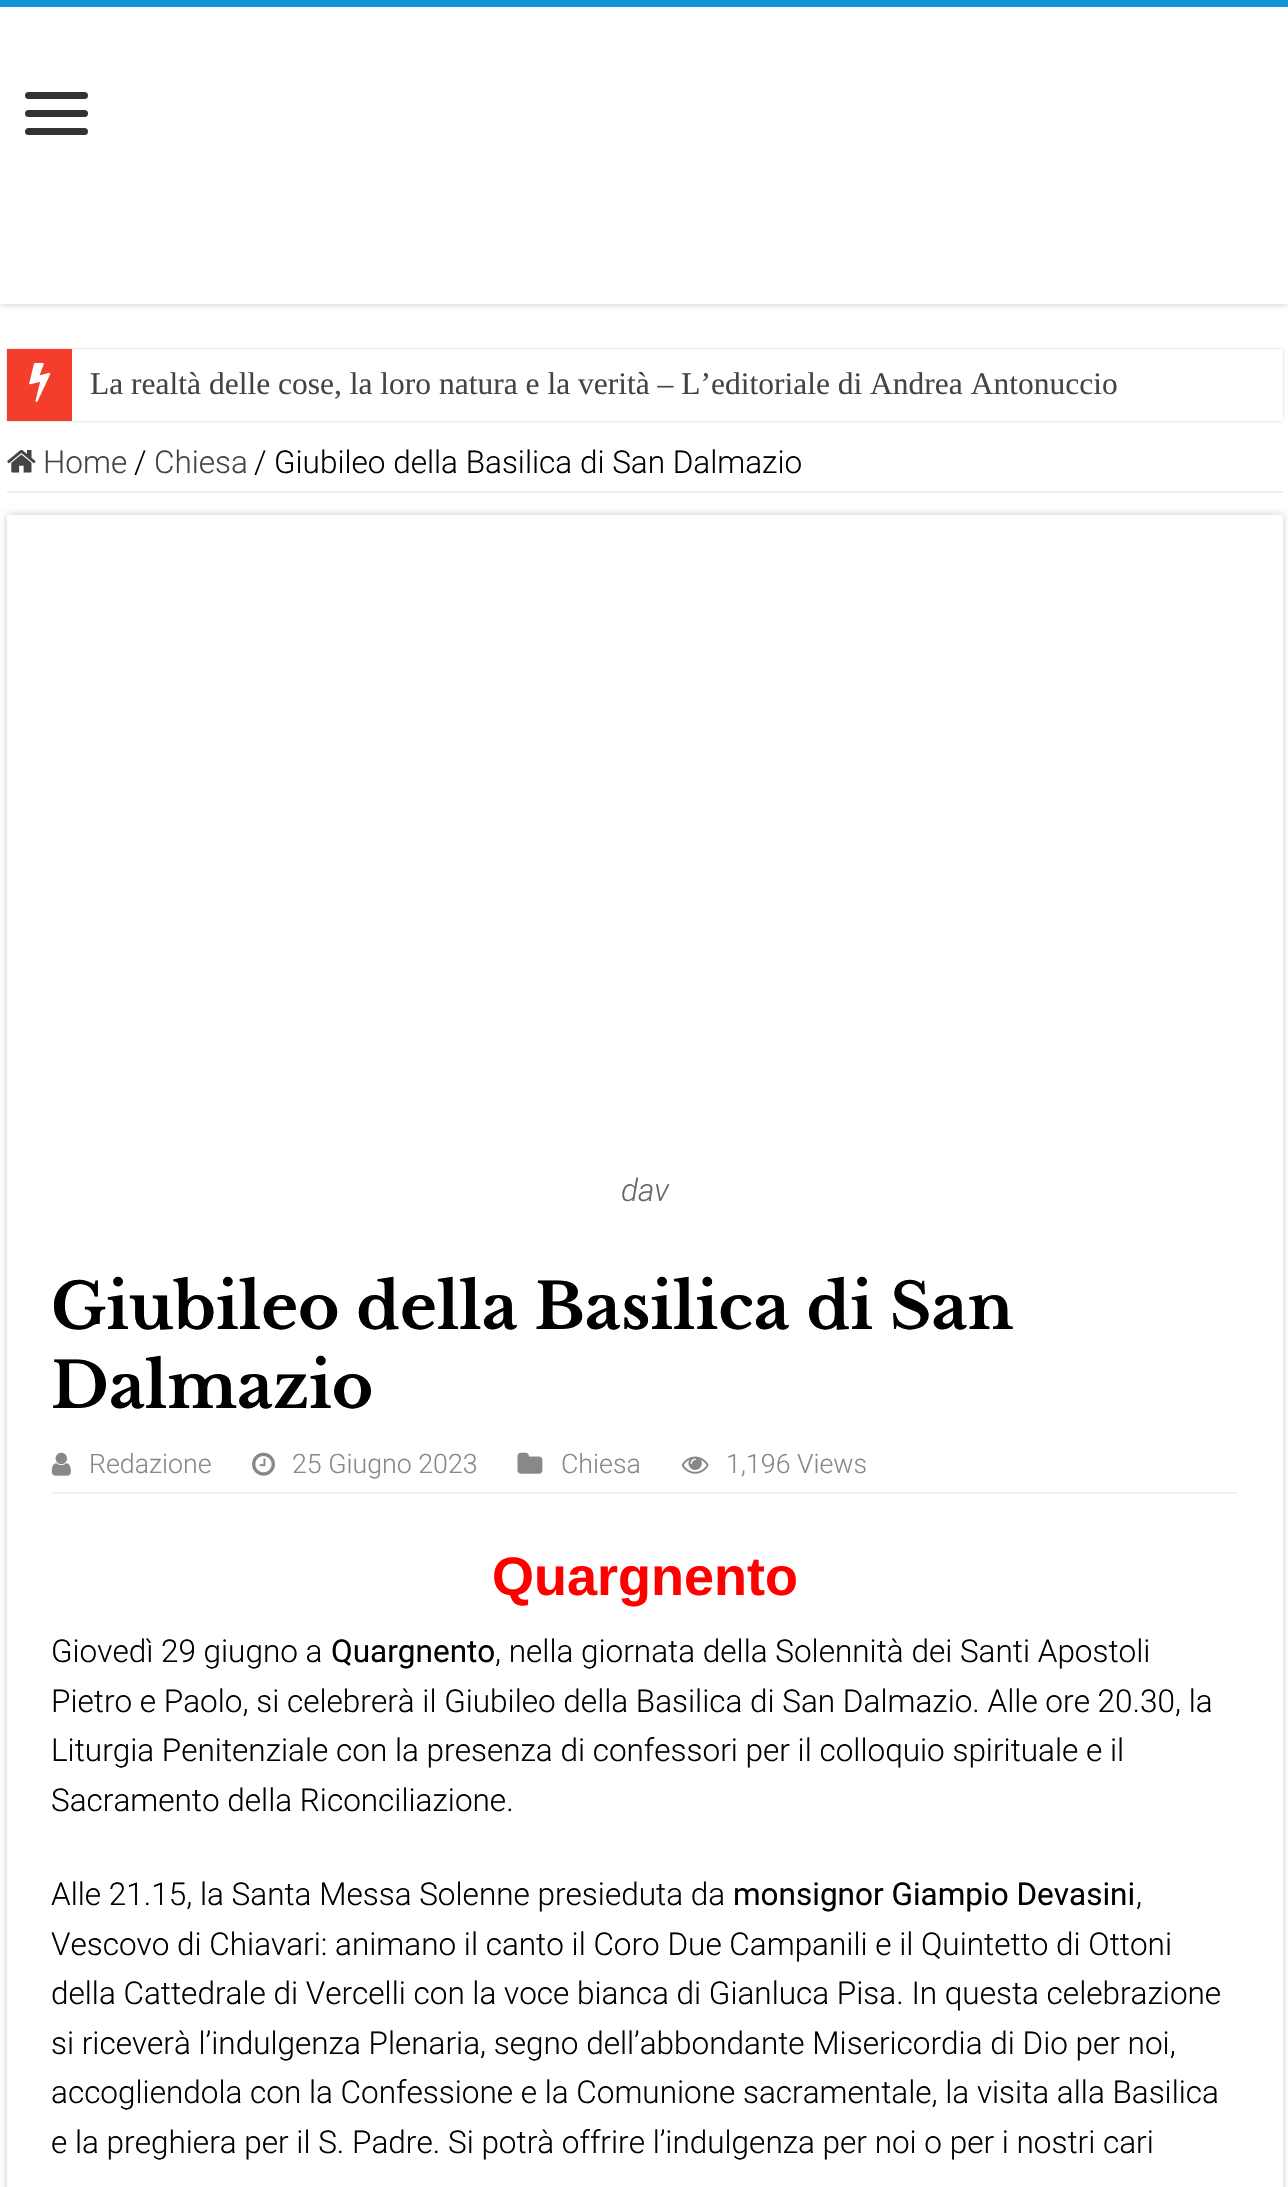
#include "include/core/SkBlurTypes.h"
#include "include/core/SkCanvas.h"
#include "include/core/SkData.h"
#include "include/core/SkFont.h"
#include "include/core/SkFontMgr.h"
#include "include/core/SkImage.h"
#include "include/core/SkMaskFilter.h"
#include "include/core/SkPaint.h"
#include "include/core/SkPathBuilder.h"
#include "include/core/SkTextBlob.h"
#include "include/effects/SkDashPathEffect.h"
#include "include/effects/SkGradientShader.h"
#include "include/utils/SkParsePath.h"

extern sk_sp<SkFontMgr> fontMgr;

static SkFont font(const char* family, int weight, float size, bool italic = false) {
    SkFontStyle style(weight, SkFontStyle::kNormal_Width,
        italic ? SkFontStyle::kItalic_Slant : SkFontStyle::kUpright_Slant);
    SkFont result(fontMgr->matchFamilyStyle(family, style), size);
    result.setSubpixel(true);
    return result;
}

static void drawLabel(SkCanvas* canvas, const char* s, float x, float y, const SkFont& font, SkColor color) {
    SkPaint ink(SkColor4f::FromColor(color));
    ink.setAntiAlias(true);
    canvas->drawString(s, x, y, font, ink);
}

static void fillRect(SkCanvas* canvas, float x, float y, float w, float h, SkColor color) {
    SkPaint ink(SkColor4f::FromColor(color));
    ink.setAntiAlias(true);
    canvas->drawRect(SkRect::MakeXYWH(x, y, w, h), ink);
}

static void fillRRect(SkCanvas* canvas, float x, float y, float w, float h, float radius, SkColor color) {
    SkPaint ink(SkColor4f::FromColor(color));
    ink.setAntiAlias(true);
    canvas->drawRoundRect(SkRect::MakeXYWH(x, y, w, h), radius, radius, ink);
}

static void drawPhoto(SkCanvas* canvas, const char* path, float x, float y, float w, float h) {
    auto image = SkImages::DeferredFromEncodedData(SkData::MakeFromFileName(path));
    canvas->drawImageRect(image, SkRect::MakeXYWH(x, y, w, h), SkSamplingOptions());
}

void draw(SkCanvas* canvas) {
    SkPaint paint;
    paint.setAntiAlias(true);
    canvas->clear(0xFFFFFFFF);
    paint.setColor(0xFFCACACA);
    paint.setMaskFilter(SkMaskFilter::MakeBlur(kNormal_SkBlurStyle, 3.5f));
    canvas->drawRect(SkRect::MakeXYWH(0, 0, 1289, 304), paint);
    paint.setMaskFilter(nullptr);
    fillRect(canvas, 0, 7, 1288, 297, 0xFFFFFFFF);
    fillRect(canvas, 0, 0, 1288, 7, 0xFF0F96D4);
    fillRRect(canvas, 25, 92, 63, 7, 3.5f, 0xFF333333);
    fillRRect(canvas, 25, 110, 63, 7, 3.5f, 0xFF333333);
    fillRRect(canvas, 25, 128, 63, 7, 3.5f, 0xFF333333);
    paint.setMaskFilter(SkMaskFilter::MakeBlur(kNormal_SkBlurStyle, 1));
    canvas->drawRect(SkRect::MakeXYWH(7, 349, 1276, 72), paint);
    paint.setMaskFilter(nullptr);
    fillRect(canvas, 72, 349, 1211, 72, 0xFFFFFFFF);
    fillRect(canvas, 7, 349, 65, 72, 0xFFF43D2A);
    drawPhoto(canvas, "assets/img1.png", 29, 363, 22, 39);
    SkFont font1 = font("Liberation Serif", 400, 31.5f);
    drawLabel(canvas, "La realtà delle cose, la loro natura e la verità – L’editoriale di Andrea Antonuccio", 90, 394, font1, 0xFF444444);
    fillRect(canvas, 7, 491, 1276, 2, 0xFFEEEEEE);
    drawPhoto(canvas, "assets/img2.png", 7, 450, 29, 23);
    SkFont font2 = font("Roboto", 300, 31.5f);
    drawLabel(canvas, "Home", 43, 473, font2, 0xFF444444);
    drawLabel(canvas, "/", 134, 473, font2, 0xFF000000);
    drawLabel(canvas, "Chiesa", 154, 473, font2, 0xFF444444);
    drawLabel(canvas, "/", 254, 473, font2, 0xFF000000);
    drawLabel(canvas, "Giubileo della Basilica di San Dalmazio", 274, 473, font2, 0xFF000000);
    paint.setMaskFilter(SkMaskFilter::MakeBlur(kNormal_SkBlurStyle, 3.5f));
    canvas->drawRect(SkRect::MakeXYWH(7, 515, 1276, 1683), paint);
    paint.setMaskFilter(nullptr);
    fillRect(canvas, 7, 515, 1276, 1672, 0xFFFFFFFF);
    SkFont font3 = font("Roboto", 300, 31.5f, true);
    drawLabel(canvas, "dav", 621, 1201, font3, 0xFF666666);
    SkFont font4 = font("Libre Baskerville", 700, 63);
    drawLabel(canvas, "Giubileo della Basilica di San", 51, 1329, font4, 0xFF000000);
    drawLabel(canvas, "Dalmazio", 51, 1408, font4, 0xFF000000);
    fillRect(canvas, 52, 1492, 1186, 2, 0xFFF2F2F2);
    drawPhoto(canvas, "assets/img3.png", 51, 1452, 20, 24);
    SkFont font5 = font("Roboto", 300, 26.75f);
    drawLabel(canvas, "Redazione", 89, 1473, font5, 0xFF888888);
    drawPhoto(canvas, "assets/img4.png", 252, 1452, 23, 24);
    drawLabel(canvas, "25 Giugno 2023", 292, 1473, font5, 0xFF888888);
    drawPhoto(canvas, "assets/img5.png", 517, 1452, 26, 22);
    drawLabel(canvas, "Chiesa", 561, 1473, font5, 0xFF888888);
    drawPhoto(canvas, "assets/img6.png", 681, 1456, 28, 18);
    drawLabel(canvas, "1,196 Views", 726, 1473, font5, 0xFF888888);
    SkFont font6 = font("Liberation Sans", 700, 54);
    drawLabel(canvas, "Quargnento", 492, 1595, font6, 0xFFFF0000);
    drawLabel(canvas, "Giovedì 29 giugno a", 51, 1662, font2, 0xFF000000);
    SkFont font7 = font("Roboto", 400, 31.5f);
    drawLabel(canvas, "Quargnento", 331, 1662, font7, 0xFF000000);
    drawLabel(canvas, ", nella giornata della Solennità dei Santi Apostoli", 495, 1662, font2, 0xFF000000);
    drawLabel(canvas, "Pietro e Paolo, si celebrerà il Giubileo della Basilica di San Dalmazio. Alle ore 20.30, la", 51, 1712, font2, 0xFF000000);
    drawLabel(canvas, "Liturgia Penitenziale con la presenza di confessori per il colloquio spirituale e il", 51, 1761, font2, 0xFF000000);
    drawLabel(canvas, "Sacramento della Riconciliazione.", 51, 1811, font2, 0xFF000000);
    drawLabel(canvas, "Alle 21.15, la Santa Messa Solenne presieduta da", 51, 1905, font2, 0xFF000000);
    drawLabel(canvas, "monsignor Giampio Devasini", 733, 1905, font7, 0xFF000000);
    drawLabel(canvas, ",", 1136, 1905, font2, 0xFF000000);
    drawLabel(canvas, "Vescovo di Chiavari: animano il canto il Coro Due Campanili e il Quintetto di Ottoni", 51, 1955, font2, 0xFF000000);
    drawLabel(canvas, "della Cattedrale di Vercelli con la voce bianca di Gianluca Pisa. In questa celebrazione", 51, 2004, font2, 0xFF000000);
    drawLabel(canvas, "si riceverà l’indulgenza Plenaria, segno dell’abbondante Misericordia di Dio per noi,", 51, 2054, font2, 0xFF000000);
    drawLabel(canvas, "accogliendola con la Confessione e la Comunione sacramentale, la visita alla Basilica", 51, 2103, font2, 0xFF000000);
    drawLabel(canvas, "e la preghiera per il S. Padre. Si potrà offrire l’indulgenza per noi o per i nostri cari", 51, 2153, font2, 0xFF000000);
}
